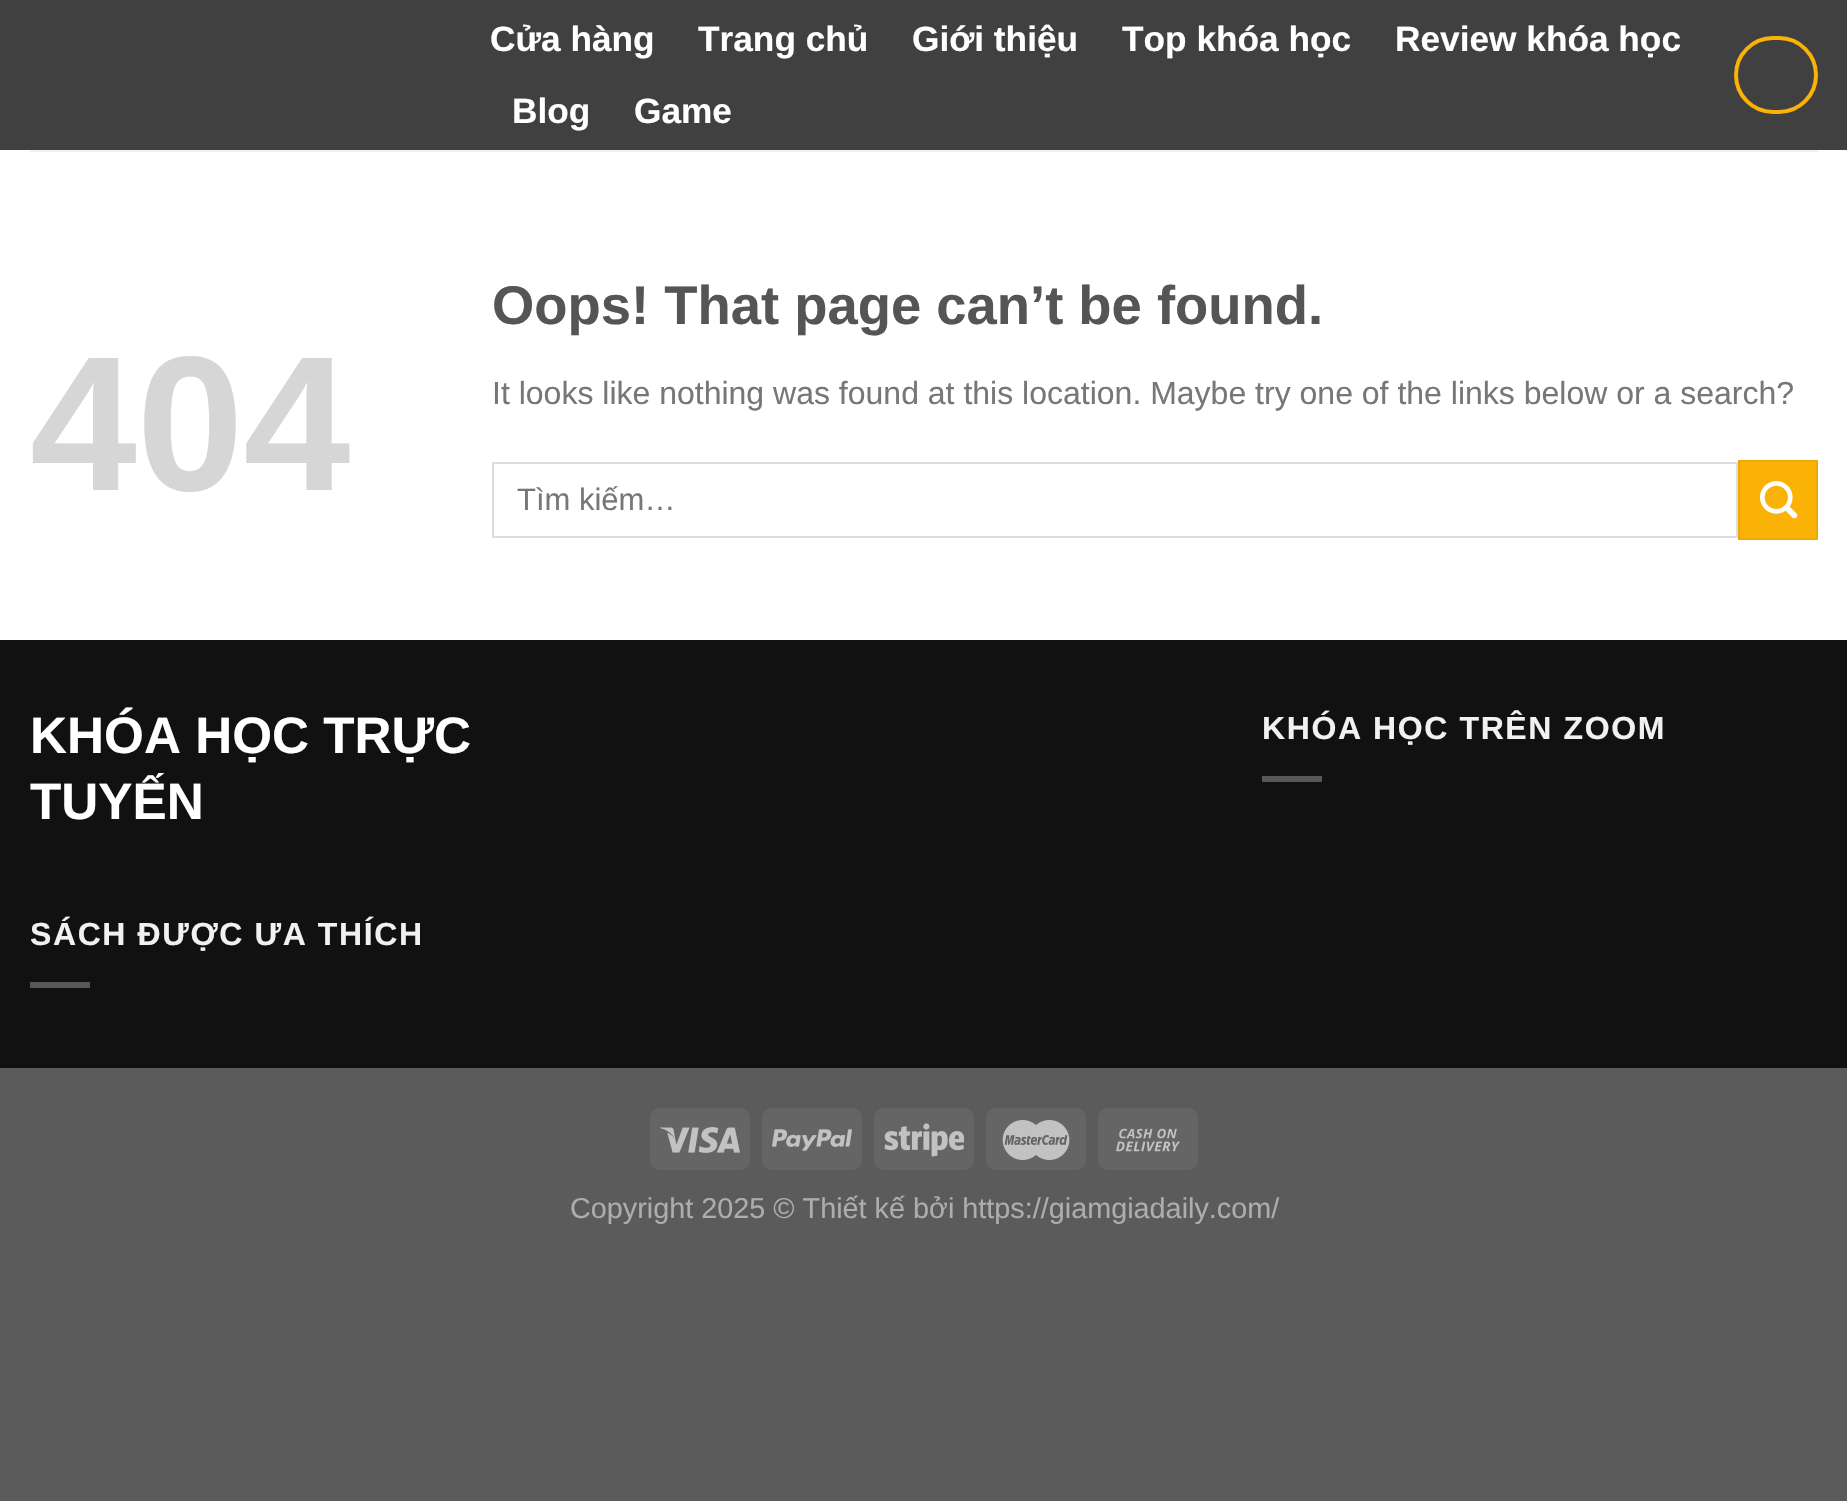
#include "include/core/SkBlurTypes.h"
#include "include/core/SkCanvas.h"
#include "include/core/SkData.h"
#include "include/core/SkFont.h"
#include "include/core/SkFontMgr.h"
#include "include/core/SkImage.h"
#include "include/core/SkMaskFilter.h"
#include "include/core/SkPaint.h"
#include "include/core/SkPathBuilder.h"
#include "include/core/SkTextBlob.h"
#include "include/effects/SkDashPathEffect.h"
#include "include/effects/SkGradientShader.h"
#include "include/utils/SkParsePath.h"

extern sk_sp<SkFontMgr> fontMgr;

static SkFont font(const char* family, int weight, float size, bool italic = false) {
    SkFontStyle style(weight, SkFontStyle::kNormal_Width,
        italic ? SkFontStyle::kItalic_Slant : SkFontStyle::kUpright_Slant);
    SkFont result(fontMgr->matchFamilyStyle(family, style), size);
    result.setSubpixel(true);
    return result;
}

static void drawLabel(SkCanvas* canvas, const char* s, float x, float y, const SkFont& font, SkColor color) {
    SkPaint ink(SkColor4f::FromColor(color));
    ink.setAntiAlias(true);
    canvas->drawString(s, x, y, font, ink);
}

static void drawTracked(SkCanvas* canvas, const char* s, float x, float y, const SkFont& font, const SkPaint& ink, float letter, float word) {
    std::vector<SkGlyphID> glyphs(font.countText(s, strlen(s), SkTextEncoding::kUTF8));
    std::vector<float> xs(glyphs.size());
    font.textToGlyphs(s, strlen(s), SkTextEncoding::kUTF8, glyphs);
    font.getXPos(glyphs, xs, x);
    float extra = 0;
    for (size_t i = 0; i < glyphs.size(); i++) {
        xs[i] += extra;
        extra += letter + word * (glyphs[i] == font.unicharToGlyph(' '));
    }
    canvas->drawTextBlob(SkTextBlob::MakeFromPosHGlyphs(glyphs, xs, y, font), 0, 0, ink);
}

static void fillRect(SkCanvas* canvas, float x, float y, float w, float h, SkColor color) {
    SkPaint ink(SkColor4f::FromColor(color));
    ink.setAntiAlias(true);
    canvas->drawRect(SkRect::MakeXYWH(x, y, w, h), ink);
}

static void fillRRect(SkCanvas* canvas, float x, float y, float w, float h, float radius, SkColor color) {
    SkPaint ink(SkColor4f::FromColor(color));
    ink.setAntiAlias(true);
    canvas->drawRoundRect(SkRect::MakeXYWH(x, y, w, h), radius, radius, ink);
}

static void drawPhoto(SkCanvas* canvas, const char* path, float x, float y, float w, float h) {
    auto image = SkImages::DeferredFromEncodedData(SkData::MakeFromFileName(path));
    canvas->drawImageRect(image, SkRect::MakeXYWH(x, y, w, h), SkSamplingOptions());
}

void draw(SkCanvas* canvas) {
    SkPaint paint;
    paint.setAntiAlias(true);
    canvas->clear(0xFF5B5B5B);
    fillRect(canvas, 0, 150, 1847, 490, 0xFFFFFFFF);
    fillRect(canvas, 0, 0, 1847, 150, 0xFF404040);
    SkFont font1 = font("Liberation Sans", 700, 35.25f);
    drawLabel(canvas, "Cửa hàng", 490, 51, font1, 0xFFFFFFFF);
    drawLabel(canvas, "Trang chủ", 698, 51, font1, 0xFFFFFFFF);
    drawLabel(canvas, "Giới thiệu", 912, 51, font1, 0xFFFFFFFF);
    drawLabel(canvas, "Top khóa học", 1122, 51, font1, 0xFFFFFFFF);
    drawLabel(canvas, "Review khóa học", 1395, 51, font1, 0xFFFFFFFF);
    drawLabel(canvas, "Blog", 512, 123, font1, 0xFFFFFFFF);
    drawLabel(canvas, "Game", 634, 123, font1, 0xFFFFFFFF);
    paint.setStroke(true);
    paint.setStrokeWidth(4);
    paint.setColor(0xFFFAB207);
    canvas->drawRoundRect(SkRect::MakeXYWH(1736, 38, 80, 74), 37, 37, paint);
    fillRect(canvas, 30, 150, 1788, 2, 0xFFF1F1F1);
    SkFont font2 = font("Liberation Sans", 700, 192);
    drawLabel(canvas, "404", 30, 490, font2, 0xFFD6D6D6);
    SkFont font3 = font("Liberation Sans", 700, 54.4f);
    drawLabel(canvas, "Oops! That page can’t be found.", 492, 324, font3, 0xFF555555);
    SkFont font4 = font("Liberation Sans", 400, 32);
    drawLabel(canvas, "It looks like nothing was found at this location. Maybe try one of the links below or a search?", 492, 404, font4, 0xFF777777);
    paint.setStrokeWidth(2);
    paint.setColor(0xFFDDDDDD);
    canvas->drawRect(SkRect::MakeXYWH(493, 463, 1244, 74), paint);
    SkFont font5 = font("Liberation Sans", 400, 31);
    drawLabel(canvas, "Tìm kiếm…", 517, 510, font5, 0xFF777777);
    paint.setStroke(false);
    paint.setColor(0xFFFAB207);
    canvas->drawRect(SkRect::MakeXYWH(1739, 461, 78, 78), paint);
    paint.setStroke(true);
    paint.setColor(0xFFEEA907);
    canvas->drawRect(SkRect::MakeXYWH(1739, 461, 78, 78), paint);
    drawPhoto(canvas, "assets/img1.png", 1760, 481, 38, 38);
    fillRect(canvas, 0, 640, 1847, 428, 0xFF111111);
    SkFont font6 = font("Liberation Sans", 700, 51.25f);
    drawLabel(canvas, "KHÓA HỌC TRỰC", 30, 753, font6, 0xFFFFFFFF);
    drawLabel(canvas, "TUYẾN", 30, 819, font6, 0xFFFFFFFF);
    SkFont font7 = font("Liberation Sans", 700, 32);
    paint.setStroke(false);
    paint.setColor(0xFFF1F1F1);
    drawTracked(canvas, "KHÓA HỌC TRÊN ZOOM", 1262, 739, font7, paint, 1.6f, 0);
    fillRect(canvas, 1262, 776, 60, 6, 0xFF585858);
    drawTracked(canvas, "SÁCH ĐƯỢC ƯA THÍCH", 30, 945, font7, paint, 1.6f, 0);
    fillRect(canvas, 30, 982, 60, 6, 0xFF585858);
    fillRRect(canvas, 650, 1108, 100, 62, 10, 0xFF656565);
    drawPhoto(canvas, "assets/img2.png", 660, 1127, 80, 26);
    fillRRect(canvas, 762, 1108, 100, 62, 10, 0xFF656565);
    drawPhoto(canvas, "assets/img3.png", 772, 1129, 80, 22);
    fillRRect(canvas, 874, 1108, 100, 62, 10, 0xFF656565);
    drawPhoto(canvas, "assets/img4.png", 884, 1123, 80, 34);
    fillRRect(canvas, 986, 1108, 100, 62, 10, 0xFF656565);
    drawPhoto(canvas, "assets/img5.png", 1002, 1120, 68, 40);
    fillRRect(canvas, 1098, 1108, 100, 62, 10, 0xFF656565);
    drawPhoto(canvas, "assets/img6.png", 1116, 1128, 64, 24);
    SkFont font8 = font("Liberation Sans", 400, 28.8f);
    drawLabel(canvas, "Copyright 2025 © Thiết kế bởi https://giamgiadaily.com/", 570, 1218, font8, 0xFFADADAD);
}
